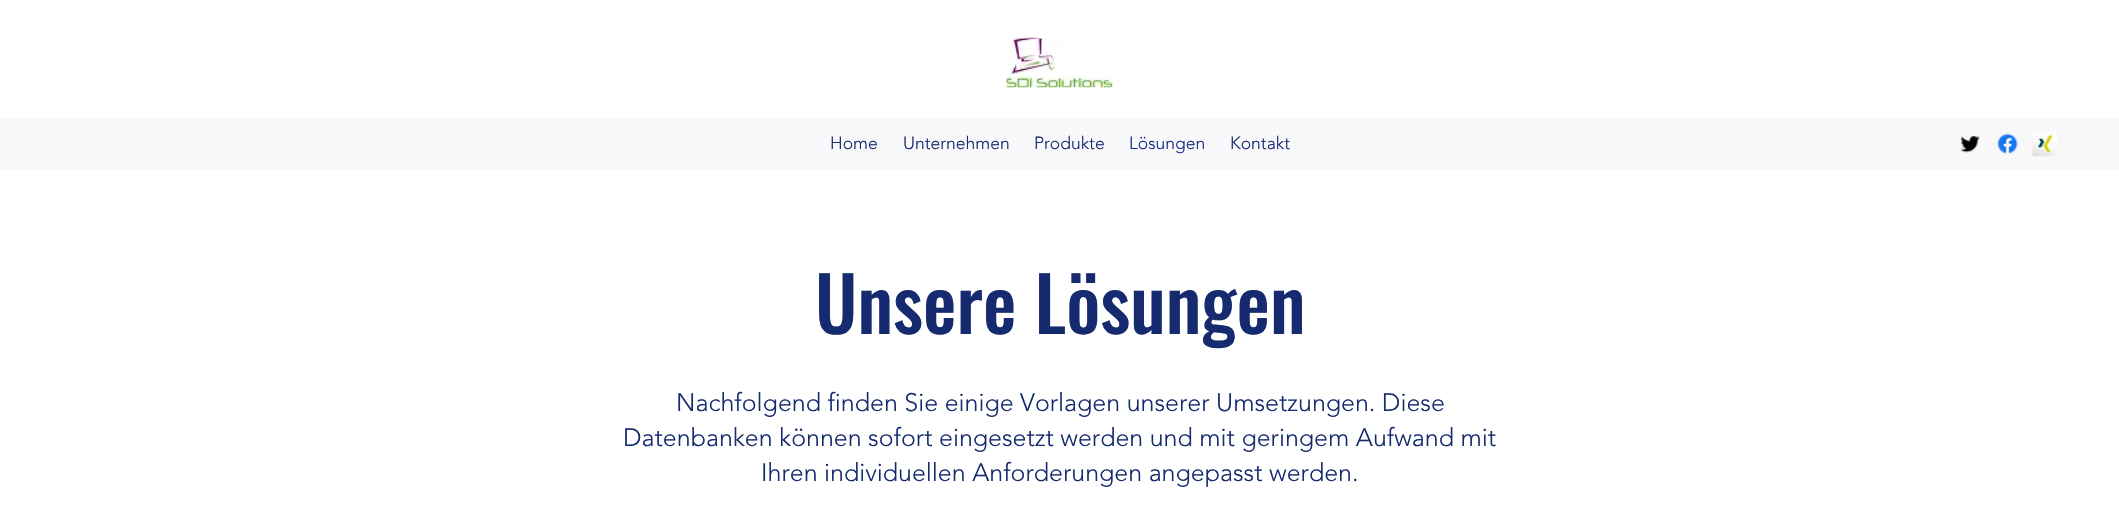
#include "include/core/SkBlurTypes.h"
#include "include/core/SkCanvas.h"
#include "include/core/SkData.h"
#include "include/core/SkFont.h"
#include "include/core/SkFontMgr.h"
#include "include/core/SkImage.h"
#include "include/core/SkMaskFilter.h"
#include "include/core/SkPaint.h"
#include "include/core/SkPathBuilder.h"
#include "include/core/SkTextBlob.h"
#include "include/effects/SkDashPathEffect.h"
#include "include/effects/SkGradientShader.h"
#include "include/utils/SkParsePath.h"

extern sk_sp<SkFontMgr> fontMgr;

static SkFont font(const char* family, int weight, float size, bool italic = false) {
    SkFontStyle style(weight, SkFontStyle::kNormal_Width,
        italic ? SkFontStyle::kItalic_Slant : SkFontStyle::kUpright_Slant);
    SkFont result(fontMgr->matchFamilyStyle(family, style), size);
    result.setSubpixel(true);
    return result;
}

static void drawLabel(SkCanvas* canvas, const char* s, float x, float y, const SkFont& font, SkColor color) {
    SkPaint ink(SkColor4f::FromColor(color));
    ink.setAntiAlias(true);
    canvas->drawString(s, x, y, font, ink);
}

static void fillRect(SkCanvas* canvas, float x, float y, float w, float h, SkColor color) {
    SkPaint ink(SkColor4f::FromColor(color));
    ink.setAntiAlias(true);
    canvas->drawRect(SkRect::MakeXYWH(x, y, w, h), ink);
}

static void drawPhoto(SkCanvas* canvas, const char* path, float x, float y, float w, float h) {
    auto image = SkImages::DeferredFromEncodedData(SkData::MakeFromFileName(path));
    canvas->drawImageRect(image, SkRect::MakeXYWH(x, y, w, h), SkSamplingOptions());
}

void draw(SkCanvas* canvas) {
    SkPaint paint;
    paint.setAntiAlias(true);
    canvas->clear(0xFFFFFFFF);
    drawPhoto(canvas, "assets/img1.png", 1006, 37, 107, 51);
    fillRect(canvas, 0, 119, 2119, 50, 0xFFF8F7F9);
    SkFont font1 = font("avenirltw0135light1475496", 300, 17.5f);
    drawLabel(canvas, "Home", 830, 149, font1, 0xFF162B6F);
    drawLabel(canvas, "Unternehmen", 903, 149, font1, 0xFF162B6F);
    drawLabel(canvas, "Produkte", 1034, 149, font1, 0xFF162B6F);
    drawLabel(canvas, "Lösungen", 1129, 149, font1, 0xFF142E84);
    drawLabel(canvas, "Kontakt", 1230, 149, font1, 0xFF162B6F);
    drawPhoto(canvas, "assets/img2.png", 1960, 135, 20, 18);
    drawPhoto(canvas, "assets/img3.png", 1997, 133, 21, 21);
    drawPhoto(canvas, "assets/img4.png", 2032, 131, 25, 26);
    SkFont font2 = font("Oswald", 500, 75);
    drawLabel(canvas, "Unsere Lösungen", 815, 334, font2, 0xFF162B6F);
    SkFont font3 = font("avenirltw0135light1475496", 300, 25);
    drawLabel(canvas, "Nachfolgend finden Sie einige Vorlagen unserer Umsetzungen. Diese", 676, 411, font3, 0xFF162B6F);
    drawLabel(canvas, "Datenbanken können sofort eingesetzt werden und mit geringem Aufwand mit", 623, 446, font3, 0xFF162B6F);
    drawLabel(canvas, "Ihren individuellen Anforderungen angepasst werden.", 761, 481, font3, 0xFF162B6F);
}
